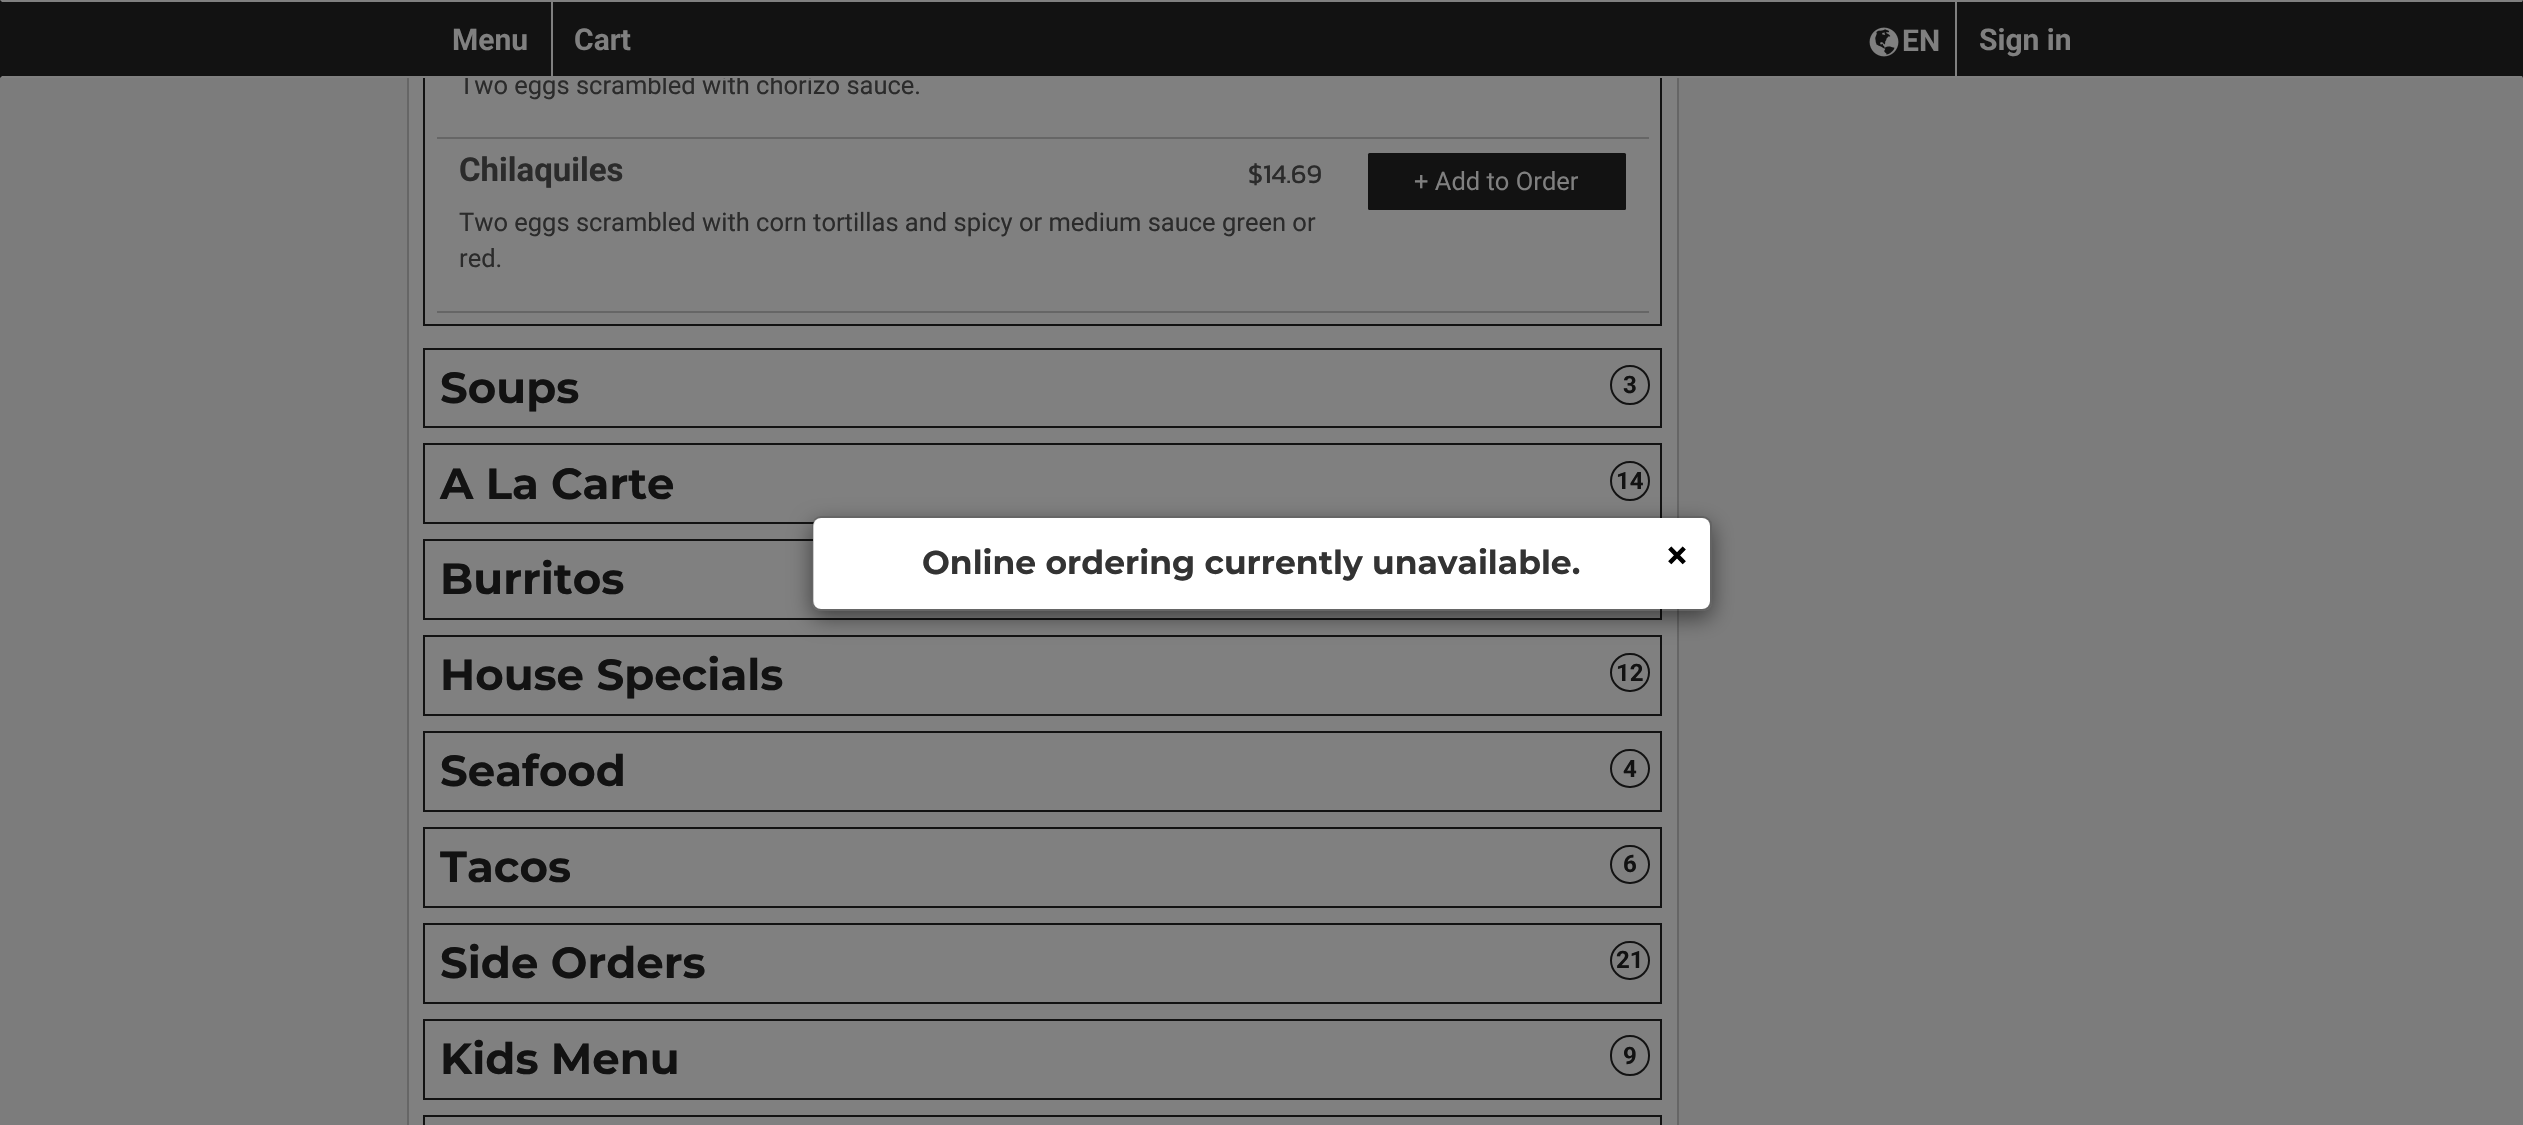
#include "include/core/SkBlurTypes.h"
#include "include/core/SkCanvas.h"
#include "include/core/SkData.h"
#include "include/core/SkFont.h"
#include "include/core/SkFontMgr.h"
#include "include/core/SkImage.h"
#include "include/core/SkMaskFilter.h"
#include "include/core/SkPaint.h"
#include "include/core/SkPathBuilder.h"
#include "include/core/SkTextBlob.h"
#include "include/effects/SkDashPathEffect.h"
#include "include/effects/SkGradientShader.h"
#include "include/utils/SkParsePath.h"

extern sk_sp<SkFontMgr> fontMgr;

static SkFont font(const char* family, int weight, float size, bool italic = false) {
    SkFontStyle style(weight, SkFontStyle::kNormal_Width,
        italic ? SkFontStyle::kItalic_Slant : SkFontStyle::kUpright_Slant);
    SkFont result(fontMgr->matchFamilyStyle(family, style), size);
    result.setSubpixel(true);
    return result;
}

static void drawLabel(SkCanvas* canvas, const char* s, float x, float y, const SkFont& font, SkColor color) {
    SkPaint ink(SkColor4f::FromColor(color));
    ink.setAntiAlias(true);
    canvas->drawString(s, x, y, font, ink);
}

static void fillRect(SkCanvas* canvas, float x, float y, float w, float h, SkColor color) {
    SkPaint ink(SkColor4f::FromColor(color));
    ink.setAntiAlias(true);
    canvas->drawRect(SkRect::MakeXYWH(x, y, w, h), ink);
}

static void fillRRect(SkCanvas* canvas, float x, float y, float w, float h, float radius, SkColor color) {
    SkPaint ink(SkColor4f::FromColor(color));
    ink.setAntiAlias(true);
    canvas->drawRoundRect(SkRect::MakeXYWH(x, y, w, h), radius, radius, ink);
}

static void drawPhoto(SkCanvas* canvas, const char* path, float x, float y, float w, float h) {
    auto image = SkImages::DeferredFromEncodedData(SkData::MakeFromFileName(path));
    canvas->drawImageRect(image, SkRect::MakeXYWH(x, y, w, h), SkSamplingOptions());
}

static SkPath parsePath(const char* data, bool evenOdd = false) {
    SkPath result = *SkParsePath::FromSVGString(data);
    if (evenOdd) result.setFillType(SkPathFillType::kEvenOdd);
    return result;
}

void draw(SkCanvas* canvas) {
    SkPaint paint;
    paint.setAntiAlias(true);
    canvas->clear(0xFF7C7C7C);
    fillRect(canvas, 409, 78, 1268, 1047, 0xFF808080);
    paint.setStroke(true);
    paint.setStrokeWidth(2);
    paint.setColor(0xFF666666);
    canvas->drawRect(SkRect::MakeXYWH(408, -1, 1270, 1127), paint);
    paint.setColor(0xFF121212);
    canvas->drawRect(SkRect::MakeXYWH(424, -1, 1237, 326), paint);
    SkFont font1 = font("Roboto", 400, 25.5f);
    drawLabel(canvas, "Two eggs scrambled with chorizo sauce.", 459, 94, font1, 0xFF2B2B2B);
    fillRect(canvas, 0, 0, 2523, 78, 0xFF121212);
    paint.setStroke(false);
    paint.setColor(0xFF808080);
    canvas->drawPath(parsePath("M0 0H2523L2522 2H2Z"), paint);
    canvas->drawPath(parsePath("M2523 78H0L2 76H2522Z"), paint);
    fillRect(canvas, 551, 2, 2, 75, 0xFF808080);
    SkFont font2 = font("Roboto", 700, 30);
    drawLabel(canvas, "Menu", 452, 50, font2, 0xFF808080);
    drawLabel(canvas, "Cart", 574, 50, font2, 0xFF808080);
    drawPhoto(canvas, "assets/img1.png", 1869, 27, 30, 30);
    drawLabel(canvas, "EN", 1902, 51, font2, 0xFF808080);
    fillRect(canvas, 1955, 2, 2, 75, 0xFF808080);
    drawLabel(canvas, "Sign in", 1979, 50, font2, 0xFF808080);
    fillRect(canvas, 437, 137, 1212, 2, 0xFF666666);
    fillRect(canvas, 437, 311, 1212, 2, 0xFF666666);
    SkFont font3 = font("Roboto", 700, 33);
    drawLabel(canvas, "Chilaquiles", 459, 181, font3, 0xFF2B2B2B);
    SkFont font4 = font("Kanit", 400, 27);
    drawLabel(canvas, "$14.69", 1248, 183, font4, 0xFF2B2B2B);
    drawLabel(canvas, "Two eggs scrambled with corn tortillas and spicy or medium sauce green or", 459, 231, font1, 0xFF2B2B2B);
    drawLabel(canvas, "red.", 459, 267, font1, 0xFF2B2B2B);
    fillRRect(canvas, 1368, 153, 258, 57, 1.5f, 0xFF121212);
    drawLabel(canvas, "+ Add to Order", 1414, 190, font1, 0xFF808080);
    paint.setStroke(true);
    paint.setColor(0xFF121212);
    canvas->drawRect(SkRect::MakeXYWH(424, 349, 1237, 78), paint);
    SkFont font5 = font("Montserrat", 700, 43.5f);
    drawLabel(canvas, "Soups", 440, 403, font5, 0xFF121212);
    canvas->drawCircle(1630, 385, 19, paint);
    SkFont font6 = font("Roboto", 700, 24);
    drawLabel(canvas, "3", 1623, 393, font6, 0xFF121212);
    canvas->drawRect(SkRect::MakeXYWH(424, 444, 1237, 79), paint);
    drawLabel(canvas, "A La Carte", 440, 499, font5, 0xFF121212);
    canvas->drawCircle(1630, 481, 19, paint);
    drawLabel(canvas, "14", 1616, 489, font6, 0xFF121212);
    canvas->drawRect(SkRect::MakeXYWH(424, 540, 1237, 79), paint);
    drawLabel(canvas, "Burritos", 440, 594, font5, 0xFF121212);
    canvas->drawRect(SkRect::MakeXYWH(424, 636, 1237, 79), paint);
    drawLabel(canvas, "House Specials", 440, 690, font5, 0xFF121212);
    canvas->drawRoundRect(SkRect::MakeXYWH(1611, 654, 38, 37), 18.5f, 18.5f, paint);
    drawLabel(canvas, "12", 1616, 681, font6, 0xFF121212);
    canvas->drawRect(SkRect::MakeXYWH(424, 732, 1237, 79), paint);
    drawLabel(canvas, "Seafood", 440, 786, font5, 0xFF121212);
    canvas->drawRoundRect(SkRect::MakeXYWH(1611, 750, 38, 37), 18.5f, 18.5f, paint);
    drawLabel(canvas, "4", 1623, 777, font6, 0xFF121212);
    canvas->drawRect(SkRect::MakeXYWH(424, 828, 1237, 79), paint);
    drawLabel(canvas, "Tacos", 440, 882, font5, 0xFF121212);
    canvas->drawRoundRect(SkRect::MakeXYWH(1611, 846, 38, 37), 18.5f, 18.5f, paint);
    drawLabel(canvas, "6", 1623, 872, font6, 0xFF121212);
    canvas->drawRect(SkRect::MakeXYWH(424, 924, 1237, 79), paint);
    drawLabel(canvas, "Side Orders", 440, 978, font5, 0xFF121212);
    canvas->drawRoundRect(SkRect::MakeXYWH(1611, 942, 38, 37), 18.5f, 18.5f, paint);
    drawLabel(canvas, "21", 1616, 968, font6, 0xFF121212);
    canvas->drawRect(SkRect::MakeXYWH(424, 1020, 1237, 79), paint);
    drawLabel(canvas, "Kids Menu", 440, 1074, font5, 0xFF121212);
    canvas->drawRoundRect(SkRect::MakeXYWH(1611, 1036, 38, 39), 19, 19, paint);
    drawLabel(canvas, "9", 1623, 1064, font6, 0xFF121212);
    canvas->drawRect(SkRect::MakeXYWH(424, 1116, 1237, 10), paint);
    canvas->save();
    canvas->clipPath(parsePath("M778 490H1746V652H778ZM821 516H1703C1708 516 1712 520 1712 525V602C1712 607 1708 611 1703 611H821C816 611 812 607 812 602V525C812 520 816 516 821 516Z", true), true);
    paint.setStroke(false);
    paint.setColor(0x80000000);
    paint.setMaskFilter(SkMaskFilter::MakeBlur(kNormal_SkBlurStyle, 11));
    canvas->drawRoundRect(SkRect::MakeXYWH(812, 524, 900, 94), 9, 9, paint);
    paint.setMaskFilter(nullptr);
    canvas->restore();
    fillRRect(canvas, 813, 518, 897, 91, 8, 0xFFFFFFFF);
    paint.setStroke(true);
    paint.setColor(0x33000000);
    canvas->drawRoundRect(SkRect::MakeXYWH(813, 517, 898, 93), 8, 8, paint);
    SkFont font7 = font("Montserrat", 700, 33);
    drawLabel(canvas, "Online ordering currently unavailable.", 922, 574, font7, 0xFF333333);
    SkFont font8 = font("Roboto", 700, 38);
    drawLabel(canvas, "×", 1667, 568, font8, 0xFF000000);
}
